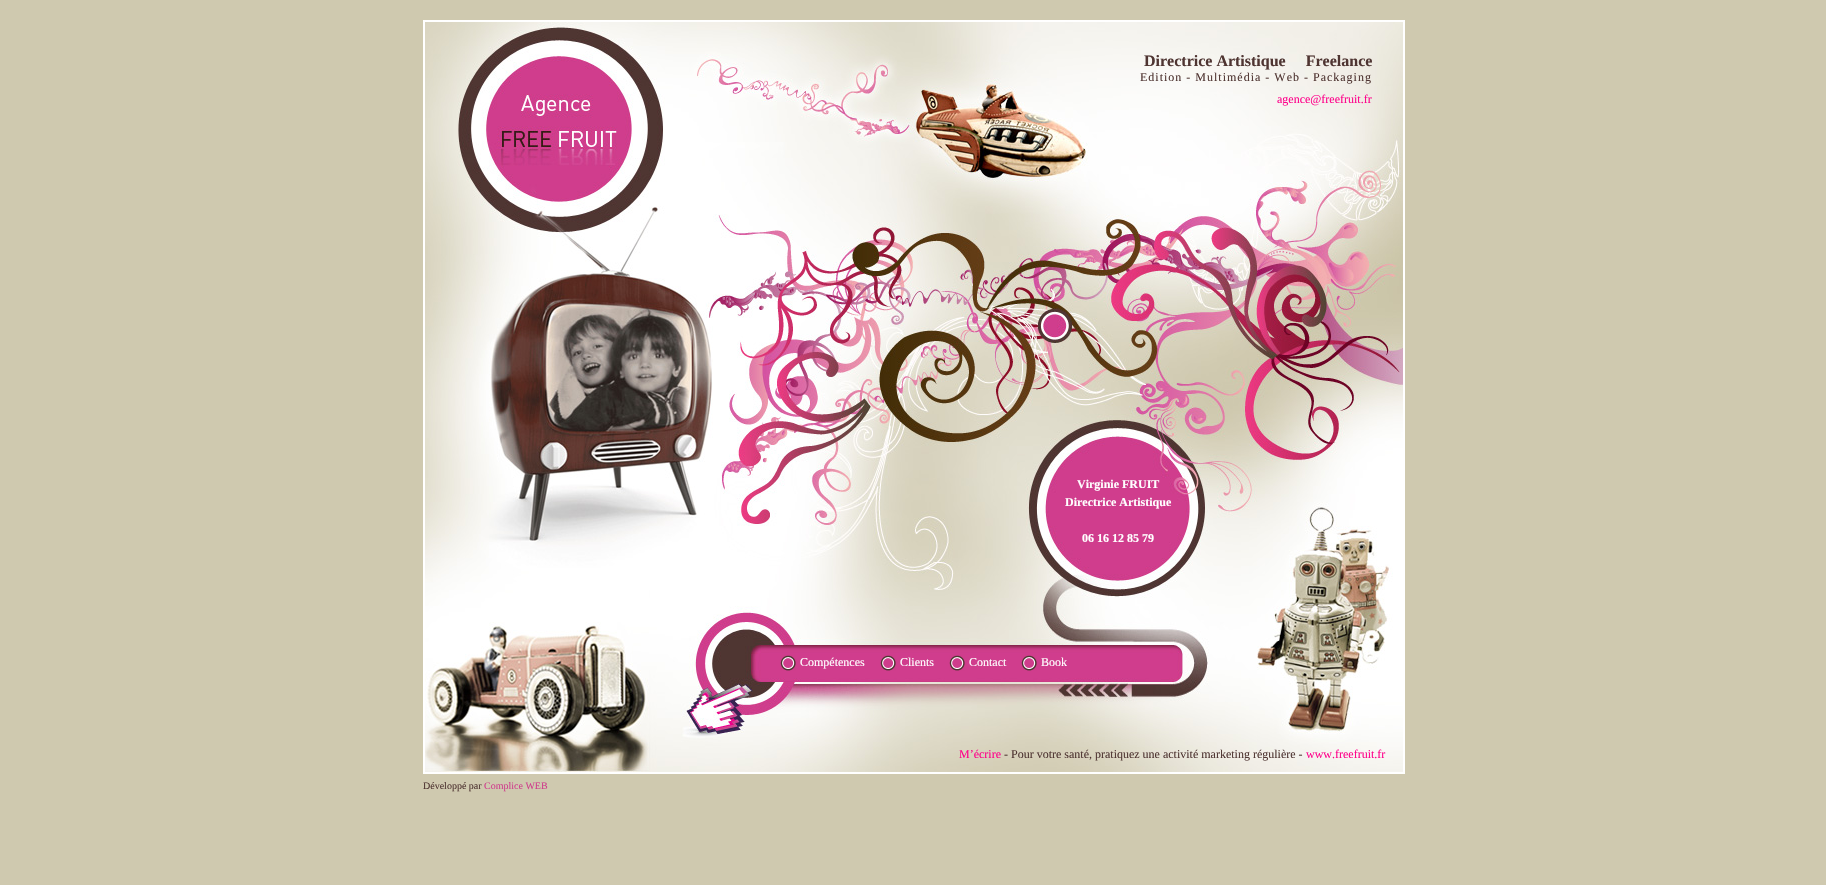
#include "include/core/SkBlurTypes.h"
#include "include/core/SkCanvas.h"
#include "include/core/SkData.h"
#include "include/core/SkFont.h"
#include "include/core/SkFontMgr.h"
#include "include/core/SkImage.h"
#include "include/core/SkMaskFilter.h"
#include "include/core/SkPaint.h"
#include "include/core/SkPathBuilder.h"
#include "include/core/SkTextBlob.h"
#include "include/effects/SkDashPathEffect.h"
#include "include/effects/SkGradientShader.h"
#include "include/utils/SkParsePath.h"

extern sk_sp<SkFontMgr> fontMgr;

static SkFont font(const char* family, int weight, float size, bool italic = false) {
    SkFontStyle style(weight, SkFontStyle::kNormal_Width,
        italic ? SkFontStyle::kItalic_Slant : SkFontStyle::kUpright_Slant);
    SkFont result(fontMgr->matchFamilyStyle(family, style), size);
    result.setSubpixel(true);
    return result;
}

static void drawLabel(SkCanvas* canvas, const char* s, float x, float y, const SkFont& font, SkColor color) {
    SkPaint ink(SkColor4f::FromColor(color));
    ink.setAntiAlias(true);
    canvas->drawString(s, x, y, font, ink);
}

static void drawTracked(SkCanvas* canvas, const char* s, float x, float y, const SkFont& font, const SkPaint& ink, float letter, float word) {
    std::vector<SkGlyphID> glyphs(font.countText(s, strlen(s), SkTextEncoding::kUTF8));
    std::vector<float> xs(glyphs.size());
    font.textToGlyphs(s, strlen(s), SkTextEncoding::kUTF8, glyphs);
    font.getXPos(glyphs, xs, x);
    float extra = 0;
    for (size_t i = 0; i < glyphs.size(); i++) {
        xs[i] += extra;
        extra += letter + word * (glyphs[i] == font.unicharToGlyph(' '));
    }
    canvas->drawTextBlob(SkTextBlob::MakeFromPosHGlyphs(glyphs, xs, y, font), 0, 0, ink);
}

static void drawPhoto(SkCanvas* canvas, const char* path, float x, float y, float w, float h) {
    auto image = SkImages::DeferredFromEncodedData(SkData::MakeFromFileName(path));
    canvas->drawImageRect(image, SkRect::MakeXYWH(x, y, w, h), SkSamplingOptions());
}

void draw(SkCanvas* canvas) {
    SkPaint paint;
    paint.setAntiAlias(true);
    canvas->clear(0xFFCFC9AF);
    drawPhoto(canvas, "assets/img1.png", 425, 22, 978, 750);
    paint.setStroke(true);
    paint.setStrokeWidth(2);
    paint.setColor(0xFFFFFFFF);
    canvas->drawRect(SkRect::MakeXYWH(424, 21, 980, 752), paint);
    SkFont font1 = font("Liberation Serif", 700, 16);
    drawLabel(canvas, "Directrice Artistique     Freelance", 1144, 66, font1, 0xFF4F3532);
    SkFont font2 = font("Liberation Serif", 400, 12);
    paint.setStroke(false);
    paint.setColor(0xFF4F3532);
    drawTracked(canvas, "Edition - Multimédia - Web - Packaging", 1140, 81, font2, paint, 1, 0);
    drawLabel(canvas, "agence@freefruit.fr", 1277, 103, font2, 0xFFFF008A);
    SkFont font3 = font("Liberation Serif", 700, 12);
    drawLabel(canvas, "Virginie FRUIT", 1077, 488, font3, 0xFFFFFFFF);
    drawLabel(canvas, "Directrice Artistique", 1065, 506, font3, 0xFFFFFFFF);
    drawLabel(canvas, "06 16 12 85 79", 1082, 542, font3, 0xFFFFFFFF);
    drawPhoto(canvas, "assets/img2.png", 780, 655, 16, 16);
    drawLabel(canvas, "Compétences", 800, 666, font2, 0xFFFFFFFF);
    drawPhoto(canvas, "assets/img2.png", 880, 655, 16, 16);
    drawLabel(canvas, "Clients", 900, 666, font2, 0xFFFFFFFF);
    drawPhoto(canvas, "assets/img2.png", 949, 655, 16, 16);
    drawLabel(canvas, "Contact", 969, 666, font2, 0xFFFFFFFF);
    drawPhoto(canvas, "assets/img2.png", 1021, 655, 16, 16);
    drawLabel(canvas, "Book", 1041, 666, font2, 0xFFFFFFFF);
    drawLabel(canvas, "M’écrire", 959, 758, font2, 0xFFFF008A);
    drawLabel(canvas, "- Pour votre santé, pratiquez une activité marketing régulière -", 1004, 758, font2, 0xFF4F3532);
    drawLabel(canvas, "www.freefruit.fr", 1306, 758, font2, 0xFFFF008A);
    SkFont font4 = font("Liberation Serif", 400, 10);
    drawLabel(canvas, "Développé par", 423, 789, font4, 0xFF4F3532);
    drawLabel(canvas, "Complice WEB", 484, 789, font4, 0xFFCF3D8C);
}
